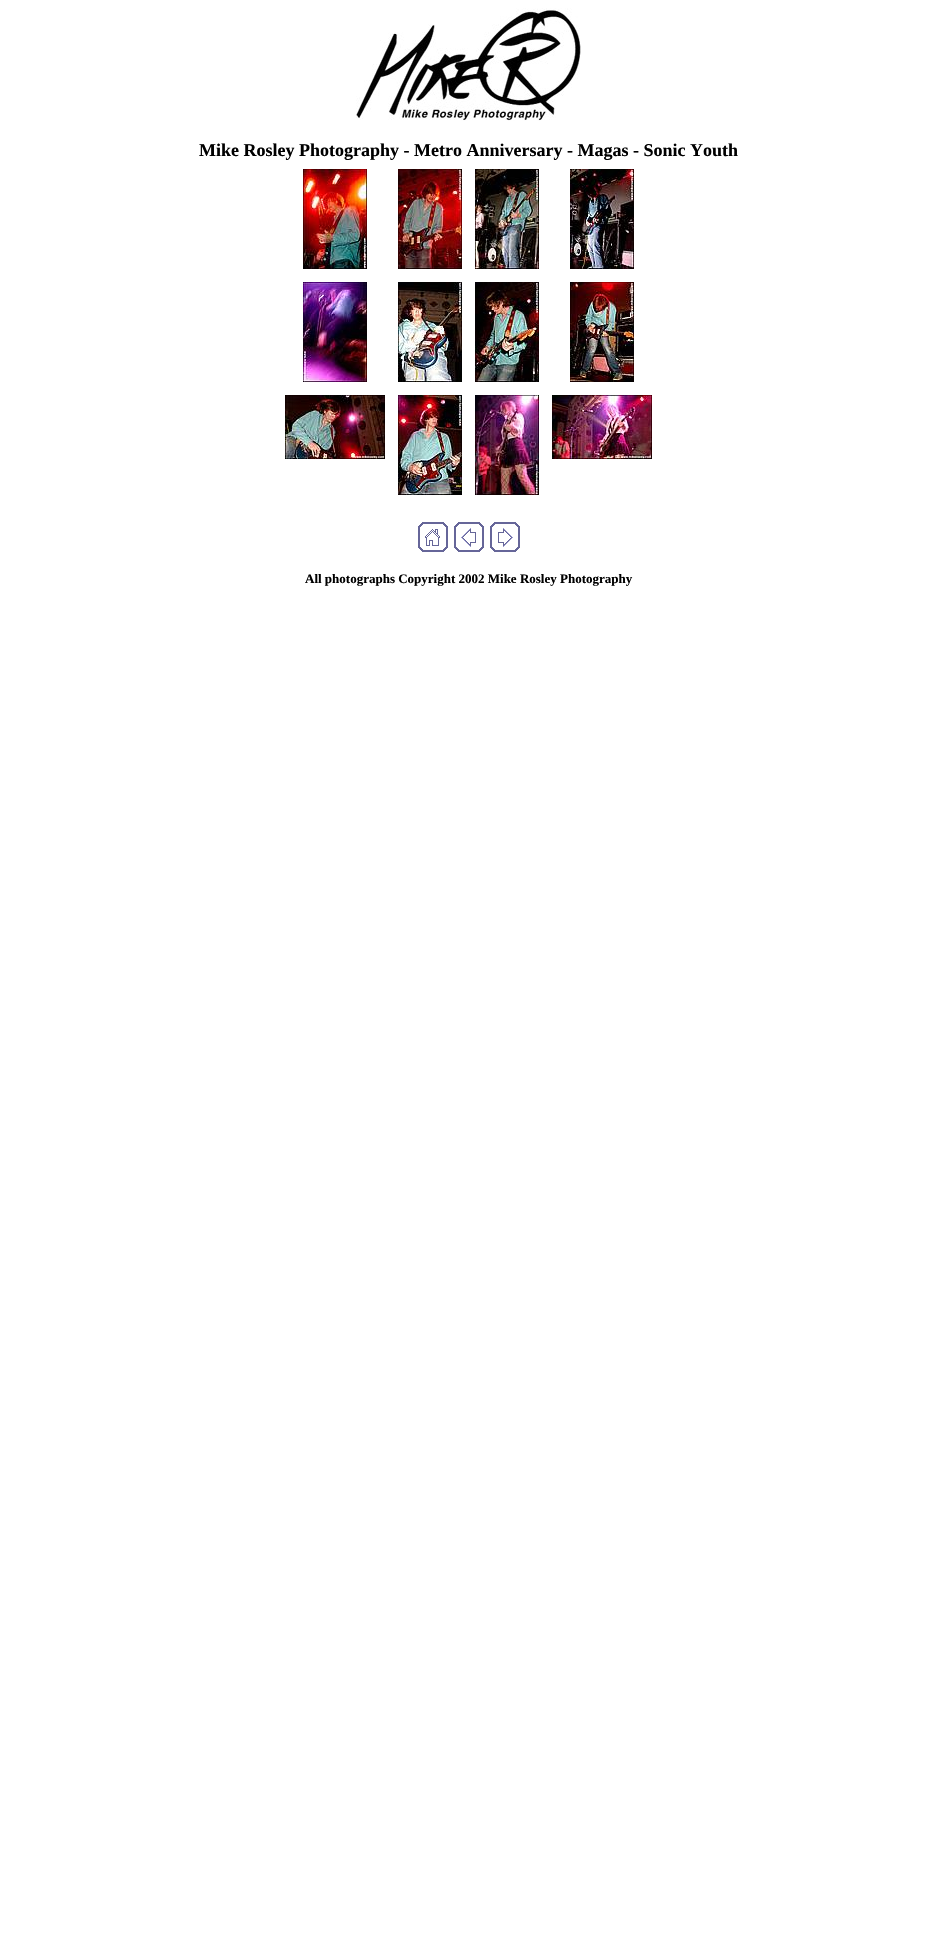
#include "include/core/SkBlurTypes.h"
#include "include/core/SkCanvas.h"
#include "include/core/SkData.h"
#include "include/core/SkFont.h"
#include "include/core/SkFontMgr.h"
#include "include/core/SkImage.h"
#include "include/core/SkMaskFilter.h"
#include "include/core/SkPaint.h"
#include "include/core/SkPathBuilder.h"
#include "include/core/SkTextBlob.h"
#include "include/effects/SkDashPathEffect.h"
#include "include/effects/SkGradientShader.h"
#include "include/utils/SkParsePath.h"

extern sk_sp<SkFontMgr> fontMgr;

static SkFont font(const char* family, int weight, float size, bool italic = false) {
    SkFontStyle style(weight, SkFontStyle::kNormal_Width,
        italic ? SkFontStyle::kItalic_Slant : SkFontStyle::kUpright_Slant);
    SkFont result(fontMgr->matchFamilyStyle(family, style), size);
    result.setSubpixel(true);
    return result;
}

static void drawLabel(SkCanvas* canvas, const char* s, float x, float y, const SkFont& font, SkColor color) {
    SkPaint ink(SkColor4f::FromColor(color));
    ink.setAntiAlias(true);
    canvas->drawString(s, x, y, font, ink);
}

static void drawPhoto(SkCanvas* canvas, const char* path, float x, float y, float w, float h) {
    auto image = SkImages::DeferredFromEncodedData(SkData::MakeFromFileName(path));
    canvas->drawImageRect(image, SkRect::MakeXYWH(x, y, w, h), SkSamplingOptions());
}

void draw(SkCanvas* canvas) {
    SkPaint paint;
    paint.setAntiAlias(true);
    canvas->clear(0xFFFFFFFF);
    drawPhoto(canvas, "assets/img1.png", 356, 8, 225, 113);
    SkFont font1 = font("Liberation Serif", 700, 18);
    drawLabel(canvas, "Mike Rosley Photography - Metro Anniversary - Magas - Sonic Youth", 199, 156, font1, 0xFF000000);
    drawPhoto(canvas, "assets/img2.png", 303, 169, 64, 100);
    drawPhoto(canvas, "assets/img3.png", 398, 169, 64, 100);
    drawPhoto(canvas, "assets/img4.png", 475, 169, 64, 100);
    drawPhoto(canvas, "assets/img5.png", 570, 169, 64, 100);
    drawPhoto(canvas, "assets/img6.png", 303, 282, 64, 100);
    drawPhoto(canvas, "assets/img7.png", 398, 282, 64, 100);
    drawPhoto(canvas, "assets/img8.png", 475, 282, 64, 100);
    drawPhoto(canvas, "assets/img9.png", 570, 282, 64, 100);
    drawPhoto(canvas, "assets/img10.png", 285, 395, 100, 64);
    drawPhoto(canvas, "assets/img11.png", 398, 395, 64, 100);
    drawPhoto(canvas, "assets/img12.png", 475, 395, 64, 100);
    drawPhoto(canvas, "assets/img13.png", 552, 395, 100, 64);
    drawPhoto(canvas, "assets/img14.png", 418, 522, 30, 30);
    drawPhoto(canvas, "assets/img15.png", 454, 522, 30, 30);
    drawPhoto(canvas, "assets/img16.png", 490, 522, 30, 30);
    SkFont font2 = font("Liberation Serif", 700, 13);
    drawLabel(canvas, "All photographs Copyright 2002 Mike Rosley Photography", 305, 583, font2, 0xFF000000);
}
